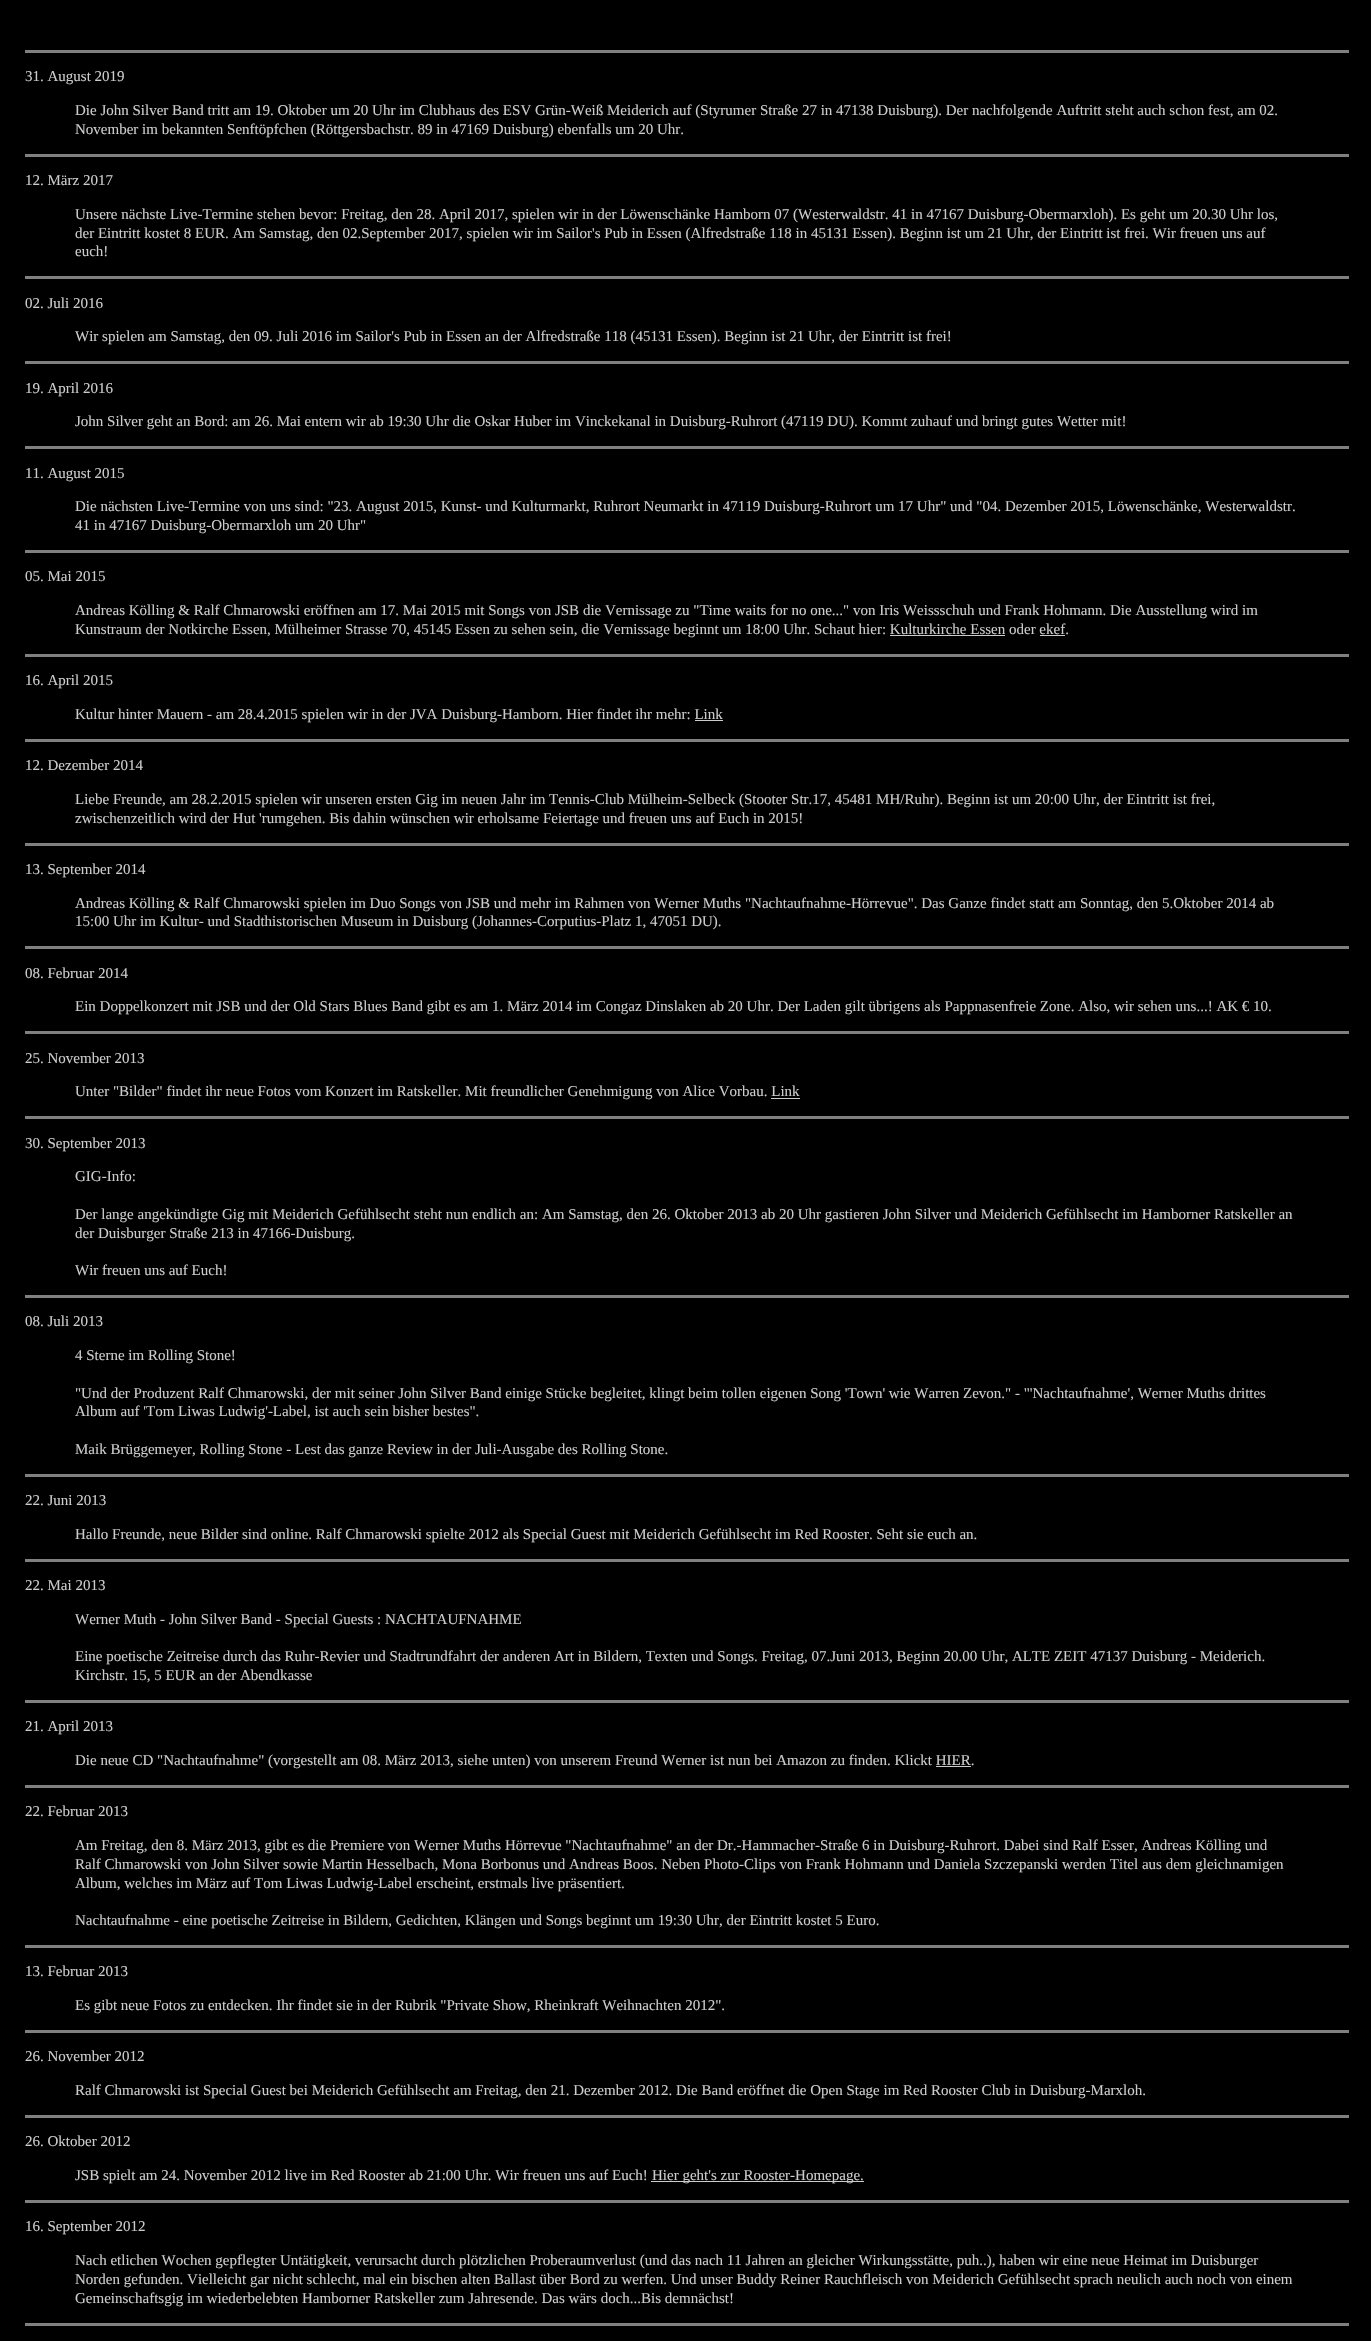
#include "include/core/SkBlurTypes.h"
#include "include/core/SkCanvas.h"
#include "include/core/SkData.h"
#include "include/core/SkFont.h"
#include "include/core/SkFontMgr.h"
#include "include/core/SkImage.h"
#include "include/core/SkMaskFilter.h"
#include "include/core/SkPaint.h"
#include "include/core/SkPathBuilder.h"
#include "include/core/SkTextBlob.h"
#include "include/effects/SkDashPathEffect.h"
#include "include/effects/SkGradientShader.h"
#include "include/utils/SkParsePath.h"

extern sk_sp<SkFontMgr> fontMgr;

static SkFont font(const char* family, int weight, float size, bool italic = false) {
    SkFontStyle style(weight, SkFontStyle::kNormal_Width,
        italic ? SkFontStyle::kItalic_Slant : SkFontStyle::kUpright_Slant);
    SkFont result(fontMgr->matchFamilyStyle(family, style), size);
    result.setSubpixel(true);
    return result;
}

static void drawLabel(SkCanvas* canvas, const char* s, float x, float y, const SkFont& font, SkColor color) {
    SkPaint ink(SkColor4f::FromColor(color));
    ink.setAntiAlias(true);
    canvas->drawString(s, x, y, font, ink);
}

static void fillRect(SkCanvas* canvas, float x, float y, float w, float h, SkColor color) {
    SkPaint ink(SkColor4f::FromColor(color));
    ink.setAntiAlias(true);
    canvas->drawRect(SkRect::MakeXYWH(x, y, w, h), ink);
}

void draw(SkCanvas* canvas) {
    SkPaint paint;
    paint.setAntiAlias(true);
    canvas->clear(0xFF000000);
    fillRect(canvas, 25, 50, 1324, 3, 0xFF808080);
    SkFont font1 = font("Liberation Serif", 400, 15);
    drawLabel(canvas, "31. August 2019", 25, 81, font1, 0xFFCCCCCC);
    drawLabel(canvas, "Die John Silver Band tritt am 19. Oktober um 20 Uhr im Clubhaus des ESV Grün-Weiß Meiderich auf (Styrumer Straße 27 in 47138 Duisburg). Der nachfolgende Auftritt steht auch schon fest, am 02.", 75, 115, font1, 0xFFCCCCCC);
    drawLabel(canvas, "November im bekannten Senftöpfchen (Röttgersbachstr. 89 in 47169 Duisburg) ebenfalls um 20 Uhr.", 75, 134, font1, 0xFFCCCCCC);
    fillRect(canvas, 25, 154, 1324, 3, 0xFF808080);
    drawLabel(canvas, "12. März 2017", 25, 185, font1, 0xFFCCCCCC);
    drawLabel(canvas, "Unsere nächste Live-Termine stehen bevor: Freitag, den 28. April 2017, spielen wir in der Löwenschänke Hamborn 07 (Westerwaldstr. 41 in 47167 Duisburg-Obermarxloh). Es geht um 20.30 Uhr los,", 75, 219, font1, 0xFFCCCCCC);
    drawLabel(canvas, "der Eintritt kostet 8 EUR. Am Samstag, den 02.September 2017, spielen wir im Sailor's Pub in Essen (Alfredstraße 118 in 45131 Essen). Beginn ist um 21 Uhr, der Eintritt ist frei. Wir freuen uns auf", 75, 238, font1, 0xFFCCCCCC);
    drawLabel(canvas, "euch!", 75, 256, font1, 0xFFCCCCCC);
    fillRect(canvas, 25, 276, 1324, 3, 0xFF808080);
    drawLabel(canvas, "02. Juli 2016", 25, 308, font1, 0xFFCCCCCC);
    drawLabel(canvas, "Wir spielen am Samstag, den 09. Juli 2016 im Sailor's Pub in Essen an der Alfredstraße 118 (45131 Essen). Beginn ist 21 Uhr, der Eintritt ist frei!", 75, 341, font1, 0xFFCCCCCC);
    fillRect(canvas, 25, 361, 1324, 3, 0xFF808080);
    drawLabel(canvas, "19. April 2016", 25, 393, font1, 0xFFCCCCCC);
    drawLabel(canvas, "John Silver geht an Bord: am 26. Mai entern wir ab 19:30 Uhr die Oskar Huber im Vinckekanal in Duisburg-Ruhrort (47119 DU). Kommt zuhauf und bringt gutes Wetter mit!", 75, 426, font1, 0xFFCCCCCC);
    fillRect(canvas, 25, 446, 1324, 3, 0xFF808080);
    drawLabel(canvas, "11. August 2015", 25, 478, font1, 0xFFCCCCCC);
    drawLabel(canvas, "Die nächsten Live-Termine von uns sind: \"23. August 2015, Kunst- und Kulturmarkt, Ruhrort Neumarkt in 47119 Duisburg-Ruhrort um 17 Uhr\" und \"04. Dezember 2015, Löwenschänke, Westerwaldstr.", 75, 511, font1, 0xFFCCCCCC);
    drawLabel(canvas, "41 in 47167 Duisburg-Obermarxloh um 20 Uhr\"", 75, 530, font1, 0xFFCCCCCC);
    fillRect(canvas, 25, 550, 1324, 3, 0xFF808080);
    drawLabel(canvas, "05. Mai 2015", 25, 581, font1, 0xFFCCCCCC);
    drawLabel(canvas, "Andreas Kölling & Ralf Chmarowski eröffnen am 17. Mai 2015 mit Songs von JSB die Vernissage zu \"Time waits for no one...\" von Iris Weissschuh und Frank Hohmann. Die Ausstellung wird im", 75, 615, font1, 0xFFCCCCCC);
    drawLabel(canvas, "Kunstraum der Notkirche Essen, Mülheimer Strasse 70, 45145 Essen zu sehen sein, die Vernissage beginnt um 18:00 Uhr. Schaut hier: Kulturkirche Essen oder ekef.", 75, 634, font1, 0xFFCCCCCC);
    fillRect(canvas, 890, 635, 115, 1, 0xFFCCCCCC);
    fillRect(canvas, 1040, 635, 25, 1, 0xFFCCCCCC);
    fillRect(canvas, 25, 654, 1324, 3, 0xFF808080);
    drawLabel(canvas, "16. April 2015", 25, 685, font1, 0xFFCCCCCC);
    drawLabel(canvas, "Kultur hinter Mauern - am 28.4.2015 spielen wir in der JVA Duisburg-Hamborn. Hier findet ihr mehr: Link", 75, 719, font1, 0xFFCCCCCC);
    fillRect(canvas, 695, 720, 28, 1, 0xFFCCCCCC);
    fillRect(canvas, 25, 739, 1324, 3, 0xFF808080);
    drawLabel(canvas, "12. Dezember 2014", 25, 770, font1, 0xFFCCCCCC);
    drawLabel(canvas, "Liebe Freunde, am 28.2.2015 spielen wir unseren ersten Gig im neuen Jahr im Tennis-Club Mülheim-Selbeck (Stooter Str.17, 45481 MH/Ruhr). Beginn ist um 20:00 Uhr, der Eintritt ist frei,", 75, 804, font1, 0xFFCCCCCC);
    drawLabel(canvas, "zwischenzeitlich wird der Hut 'rumgehen. Bis dahin wünschen wir erholsame Feiertage und freuen uns auf Euch in 2015!", 75, 823, font1, 0xFFCCCCCC);
    fillRect(canvas, 25, 843, 1324, 3, 0xFF808080);
    drawLabel(canvas, "13. September 2014", 25, 874, font1, 0xFFCCCCCC);
    drawLabel(canvas, "Andreas Kölling & Ralf Chmarowski spielen im Duo Songs von JSB und mehr im Rahmen von Werner Muths \"Nachtaufnahme-Hörrevue\". Das Ganze findet statt am Sonntag, den 5.Oktober 2014 ab", 75, 908, font1, 0xFFCCCCCC);
    drawLabel(canvas, "15:00 Uhr im Kultur- und Stadthistorischen Museum in Duisburg (Johannes-Corputius-Platz 1, 47051 DU).", 75, 926, font1, 0xFFCCCCCC);
    fillRect(canvas, 25, 946, 1324, 3, 0xFF808080);
    drawLabel(canvas, "08. Februar 2014", 25, 978, font1, 0xFFCCCCCC);
    drawLabel(canvas, "Ein Doppelkonzert mit JSB und der Old Stars Blues Band gibt es am 1. März 2014 im Congaz Dinslaken ab 20 Uhr. Der Laden gilt übrigens als Pappnasenfreie Zone. Also, wir sehen uns...! AK € 10.", 75, 1011, font1, 0xFFCCCCCC);
    fillRect(canvas, 25, 1031, 1324, 3, 0xFF808080);
    drawLabel(canvas, "25. November 2013", 25, 1063, font1, 0xFFCCCCCC);
    drawLabel(canvas, "Unter \"Bilder\" findet ihr neue Fotos vom Konzert im Ratskeller. Mit freundlicher Genehmigung von Alice Vorbau. Link", 75, 1096, font1, 0xFFCCCCCC);
    fillRect(canvas, 771, 1098, 29, 1, 0xFFCCCCCC);
    fillRect(canvas, 25, 1116, 1324, 3, 0xFF808080);
    drawLabel(canvas, "30. September 2013", 25, 1148, font1, 0xFFCCCCCC);
    drawLabel(canvas, "GIG-Info:", 75, 1181, font1, 0xFFCCCCCC);
    drawLabel(canvas, "Der lange angekündigte Gig mit Meiderich Gefühlsecht steht nun endlich an: Am Samstag, den 26. Oktober 2013 ab 20 Uhr gastieren John Silver und Meiderich Gefühlsecht im Hamborner Ratskeller an", 75, 1219, font1, 0xFFCCCCCC);
    drawLabel(canvas, "der Duisburger Straße 213 in 47166-Duisburg.", 75, 1238, font1, 0xFFCCCCCC);
    drawLabel(canvas, "Wir freuen uns auf Euch!", 75, 1275, font1, 0xFFCCCCCC);
    fillRect(canvas, 25, 1295, 1324, 3, 0xFF808080);
    drawLabel(canvas, "08. Juli 2013", 25, 1326, font1, 0xFFCCCCCC);
    drawLabel(canvas, "4 Sterne im Rolling Stone!", 75, 1360, font1, 0xFFCCCCCC);
    drawLabel(canvas, "\"Und der Produzent Ralf Chmarowski, der mit seiner John Silver Band einige Stücke begleitet, klingt beim tollen eigenen Song 'Town' wie Warren Zevon.\" - \"'Nachtaufnahme', Werner Muths drittes", 75, 1398, font1, 0xFFCCCCCC);
    drawLabel(canvas, "Album auf 'Tom Liwas Ludwig'-Label, ist auch sein bisher bestes\".", 75, 1416, font1, 0xFFCCCCCC);
    drawLabel(canvas, "Maik Brüggemeyer, Rolling Stone - Lest das ganze Review in der Juli-Ausgabe des Rolling Stone.", 75, 1454, font1, 0xFFCCCCCC);
    fillRect(canvas, 25, 1474, 1324, 3, 0xFF808080);
    drawLabel(canvas, "22. Juni 2013", 25, 1505, font1, 0xFFCCCCCC);
    drawLabel(canvas, "Hallo Freunde, neue Bilder sind online. Ralf Chmarowski spielte 2012 als Special Guest mit Meiderich Gefühlsecht im Red Rooster. Seht sie euch an.", 75, 1539, font1, 0xFFCCCCCC);
    fillRect(canvas, 25, 1559, 1324, 3, 0xFF808080);
    drawLabel(canvas, "22. Mai 2013", 25, 1590, font1, 0xFFCCCCCC);
    drawLabel(canvas, "Werner Muth - John Silver Band - Special Guests : NACHTAUFNAHME", 75, 1624, font1, 0xFFCCCCCC);
    drawLabel(canvas, "Eine poetische Zeitreise durch das Ruhr-Revier und Stadtrundfahrt der anderen Art in Bildern, Texten und Songs. Freitag, 07.Juni 2013, Beginn 20.00 Uhr, ALTE ZEIT 47137 Duisburg - Meiderich.", 75, 1661, font1, 0xFFCCCCCC);
    drawLabel(canvas, "Kirchstr. 15, 5 EUR an der Abendkasse", 75, 1680, font1, 0xFFCCCCCC);
    fillRect(canvas, 25, 1700, 1324, 3, 0xFF808080);
    drawLabel(canvas, "21. April 2013", 25, 1731, font1, 0xFFCCCCCC);
    drawLabel(canvas, "Die neue CD \"Nachtaufnahme\" (vorgestellt am 08. März 2013, siehe unten) von unserem Freund Werner ist nun bei Amazon zu finden. Klickt HIER.", 75, 1765, font1, 0xFFCCCCCC);
    fillRect(canvas, 936, 1766, 35, 1, 0xFFCCCCCC);
    fillRect(canvas, 25, 1785, 1324, 3, 0xFF808080);
    drawLabel(canvas, "22. Februar 2013", 25, 1816, font1, 0xFFCCCCCC);
    drawLabel(canvas, "Am Freitag, den 8. März 2013, gibt es die Premiere von Werner Muths Hörrevue \"Nachtaufnahme\" an der Dr.-Hammacher-Straße 6 in Duisburg-Ruhrort. Dabei sind Ralf Esser, Andreas Kölling und", 75, 1850, font1, 0xFFCCCCCC);
    drawLabel(canvas, "Ralf Chmarowski von John Silver sowie Martin Hesselbach, Mona Borbonus und Andreas Boos. Neben Photo-Clips von Frank Hohmann und Daniela Szczepanski werden Titel aus dem gleichnamigen", 75, 1869, font1, 0xFFCCCCCC);
    drawLabel(canvas, "Album, welches im März auf Tom Liwas Ludwig-Label erscheint, erstmals live präsentiert.", 75, 1888, font1, 0xFFCCCCCC);
    drawLabel(canvas, "Nachtaufnahme - eine poetische Zeitreise in Bildern, Gedichten, Klängen und Songs beginnt um 19:30 Uhr, der Eintritt kostet 5 Euro.", 75, 1925, font1, 0xFFCCCCCC);
    fillRect(canvas, 25, 1945, 1324, 3, 0xFF808080);
    drawLabel(canvas, "13. Februar 2013", 25, 1976, font1, 0xFFCCCCCC);
    drawLabel(canvas, "Es gibt neue Fotos zu entdecken. Ihr findet sie in der Rubrik \"Private Show, Rheinkraft Weihnachten 2012\".", 75, 2010, font1, 0xFFCCCCCC);
    fillRect(canvas, 25, 2030, 1324, 3, 0xFF808080);
    drawLabel(canvas, "26. November 2012", 25, 2061, font1, 0xFFCCCCCC);
    drawLabel(canvas, "Ralf Chmarowski ist Special Guest bei Meiderich Gefühlsecht am Freitag, den 21. Dezember 2012. Die Band eröffnet die Open Stage im Red Rooster Club in Duisburg-Marxloh.", 75, 2095, font1, 0xFFCCCCCC);
    fillRect(canvas, 25, 2115, 1324, 3, 0xFF808080);
    drawLabel(canvas, "26. Oktober 2012", 25, 2146, font1, 0xFFCCCCCC);
    drawLabel(canvas, "JSB spielt am 24. November 2012 live im Red Rooster ab 21:00 Uhr. Wir freuen uns auf Euch!", 75, 2180, font1, 0xFFCCCCCC);
    fillRect(canvas, 651, 2181, 213, 1, 0xFFCCCCCC);
    drawLabel(canvas, "Hier geht's zur Rooster-Homepage.", 652, 2180, font1, 0xFFCCCCCC);
    fillRect(canvas, 25, 2200, 1324, 3, 0xFF808080);
    drawLabel(canvas, "16. September 2012", 25, 2231, font1, 0xFFCCCCCC);
    drawLabel(canvas, "Nach etlichen Wochen gepflegter Untätigkeit, verursacht durch plötzlichen Proberaumverlust (und das nach 11 Jahren an gleicher Wirkungsstätte, puh..), haben wir eine neue Heimat im Duisburger", 75, 2265, font1, 0xFFCCCCCC);
    drawLabel(canvas, "Norden gefunden. Vielleicht gar nicht schlecht, mal ein bischen alten Ballast über Bord zu werfen. Und unser Buddy Reiner Rauchfleisch von Meiderich Gefühlsecht sprach neulich auch noch von einem", 75, 2284, font1, 0xFFCCCCCC);
    drawLabel(canvas, "Gemeinschaftsgig im wiederbelebten Hamborner Ratskeller zum Jahresende. Das wärs doch...Bis demnächst!", 75, 2303, font1, 0xFFCCCCCC);
    fillRect(canvas, 25, 2323, 1324, 3, 0xFF808080);
}
